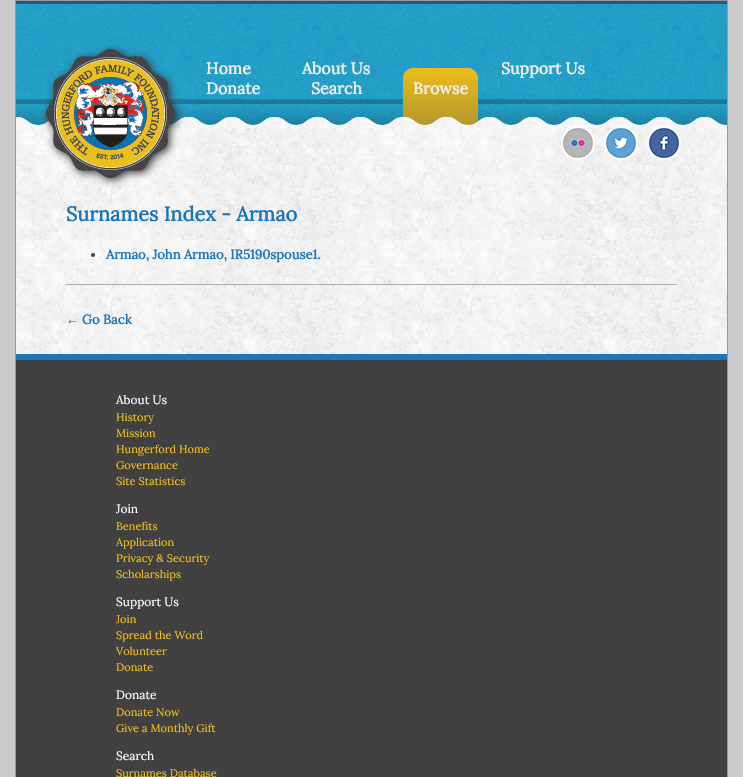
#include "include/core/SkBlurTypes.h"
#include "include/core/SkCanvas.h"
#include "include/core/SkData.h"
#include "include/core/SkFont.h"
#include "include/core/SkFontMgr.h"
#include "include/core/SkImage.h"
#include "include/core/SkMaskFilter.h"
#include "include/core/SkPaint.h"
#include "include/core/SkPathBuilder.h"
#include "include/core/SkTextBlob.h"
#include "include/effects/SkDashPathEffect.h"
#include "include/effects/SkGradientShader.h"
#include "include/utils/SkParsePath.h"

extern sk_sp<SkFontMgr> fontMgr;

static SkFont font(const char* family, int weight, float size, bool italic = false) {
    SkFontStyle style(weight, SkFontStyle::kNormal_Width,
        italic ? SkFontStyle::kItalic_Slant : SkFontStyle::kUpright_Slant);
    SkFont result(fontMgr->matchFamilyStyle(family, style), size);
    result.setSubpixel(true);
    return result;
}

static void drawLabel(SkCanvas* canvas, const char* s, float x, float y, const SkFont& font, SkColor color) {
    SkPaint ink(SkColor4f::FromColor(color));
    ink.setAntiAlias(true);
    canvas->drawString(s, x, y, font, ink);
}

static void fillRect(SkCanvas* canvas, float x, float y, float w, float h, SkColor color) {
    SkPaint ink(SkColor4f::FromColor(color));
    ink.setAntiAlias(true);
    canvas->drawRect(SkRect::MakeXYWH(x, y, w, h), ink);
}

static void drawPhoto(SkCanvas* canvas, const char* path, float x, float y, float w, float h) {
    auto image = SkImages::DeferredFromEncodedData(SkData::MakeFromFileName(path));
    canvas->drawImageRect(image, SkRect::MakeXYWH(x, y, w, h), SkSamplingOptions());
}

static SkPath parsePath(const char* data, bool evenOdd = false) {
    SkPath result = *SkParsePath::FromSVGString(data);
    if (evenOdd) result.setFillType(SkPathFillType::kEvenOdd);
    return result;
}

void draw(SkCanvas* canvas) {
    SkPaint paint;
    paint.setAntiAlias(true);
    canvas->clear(0xFFCCCCCC);
    drawPhoto(canvas, "assets/img1.png", 16, 99, 711, 26);
    paint.setStroke(true);
    paint.setStrokeWidth(1);
    paint.setColor(0xFF999999);
    canvas->drawRect(SkRect::MakeXYWH(15.5f, 0.5f, 712, 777), paint);
    drawPhoto(canvas, "assets/img7.png", 16, 4, 711, 95);
    paint.setStroke(false);
    {
        const SkColor colors[] = {0xFFEDBB1A, 0xFFB4982D};
        const float stops[] = {0, 1};
        const SkPoint ends[] = {{441, 68}, {441, 126}};
        paint.setShader(SkGradientShader::MakeLinear(ends, colors, stops, 2, SkTileMode::kClamp));
        paint.setAlpha(255);
    }
    canvas->drawPath(parsePath("M413 68H468C473.5 68 478 72.5 478 78V126H403V78C403 72.5 407.5 68 413 68Z"), paint);
    drawPhoto(canvas, "assets/img2.png", 16, 117, 711, 11);
    drawPhoto(canvas, "assets/img8.png", 16, 128, 711, 112);
    drawPhoto(canvas, "assets/img3.png", 41, 44, 144, 144);
    drawPhoto(canvas, "assets/img4.png", 561, 126, 34, 34);
    drawPhoto(canvas, "assets/img5.png", 604, 126, 34, 34);
    drawPhoto(canvas, "assets/img6.png", 647, 126, 34, 34);
    fillRect(canvas, 16, 1, 711, 3, 0xFF1C5888);
    SkFont font1 = font("Lora", 700, 16);
    drawLabel(canvas, "Home", 206, 74, font1, 0xFFEFEFEF);
    drawLabel(canvas, "About Us", 302, 74, font1, 0xFFEFEFEF);
    drawLabel(canvas, "Support Us", 501, 74, font1, 0xFFEFEFEF);
    drawLabel(canvas, "Donate", 206, 94, font1, 0xFFEFEFEF);
    drawLabel(canvas, "Search", 311, 94, font1, 0xFFEFEFEF);
    drawLabel(canvas, "Browse", 413, 94, font1, 0xFFEFEFEF);
    SkFont font2 = font("Lora", 700, 20);
    drawLabel(canvas, "Surnames Index - Armao", 66, 221, font2, 0xFF1B75BA);
    drawPhoto(canvas, "assets/img9.png", 16, 240, 711, 114);
    paint.setShader(nullptr);
    paint.setColor(0xFF404041);
    canvas->drawCircle(93, 255, 2, paint);
    SkFont font3 = font("Lora", 700, 13);
    drawLabel(canvas, "Armao, John Armao, IR5190spouse1.", 106, 259, font3, 0xFF1B75BA);
    fillRect(canvas, 66, 284, 611, 1, 0xFFADADAE);
    SkFont font4 = font("Liberation Serif", 700, 13);
    drawLabel(canvas, "←", 66, 324, font4, 0xFF1B75BA);
    drawLabel(canvas, "Go Back", 82, 324, font3, 0xFF1B75BA);
    fillRect(canvas, 16, 360, 711, 417, 0xFF424142);
    fillRect(canvas, 16, 354, 711, 6, 0xFF1C74BB);
    SkFont font5 = font("Lora", 400, 12);
    drawLabel(canvas, "About Us", 116, 404, font5, 0xFFFFFFFF);
    SkFont font6 = font("Lora", 400, 11);
    drawLabel(canvas, "History", 116, 421, font6, 0xFFF1C01B);
    drawLabel(canvas, "Mission", 116, 437, font6, 0xFFF1C01B);
    drawLabel(canvas, "Hungerford Home", 116, 453, font6, 0xFFF1C01B);
    drawLabel(canvas, "Governance", 116, 469, font6, 0xFFF1C01B);
    drawLabel(canvas, "Site Statistics", 116, 485, font6, 0xFFF1C01B);
    drawLabel(canvas, "Join", 116, 513, font5, 0xFFFFFFFF);
    drawLabel(canvas, "Benefits", 116, 530, font6, 0xFFF1C01B);
    drawLabel(canvas, "Application", 116, 546, font6, 0xFFF1C01B);
    drawLabel(canvas, "Privacy & Security", 116, 562, font6, 0xFFF1C01B);
    drawLabel(canvas, "Scholarships", 116, 578, font6, 0xFFF1C01B);
    drawLabel(canvas, "Support Us", 116, 606, font5, 0xFFFFFFFF);
    drawLabel(canvas, "Join", 116, 623, font6, 0xFFF1C01B);
    drawLabel(canvas, "Spread the Word", 116, 639, font6, 0xFFF1C01B);
    drawLabel(canvas, "Volunteer", 116, 655, font6, 0xFFF1C01B);
    drawLabel(canvas, "Donate", 116, 671, font6, 0xFFF1C01B);
    drawLabel(canvas, "Donate", 116, 699, font5, 0xFFFFFFFF);
    drawLabel(canvas, "Donate Now", 116, 716, font6, 0xFFF1C01B);
    drawLabel(canvas, "Give a Monthly Gift", 116, 732, font6, 0xFFF1C01B);
    drawLabel(canvas, "Search", 116, 760, font5, 0xFFFFFFFF);
    drawLabel(canvas, "Surnames Database", 116, 777, font6, 0xFFF1C01B);
}
